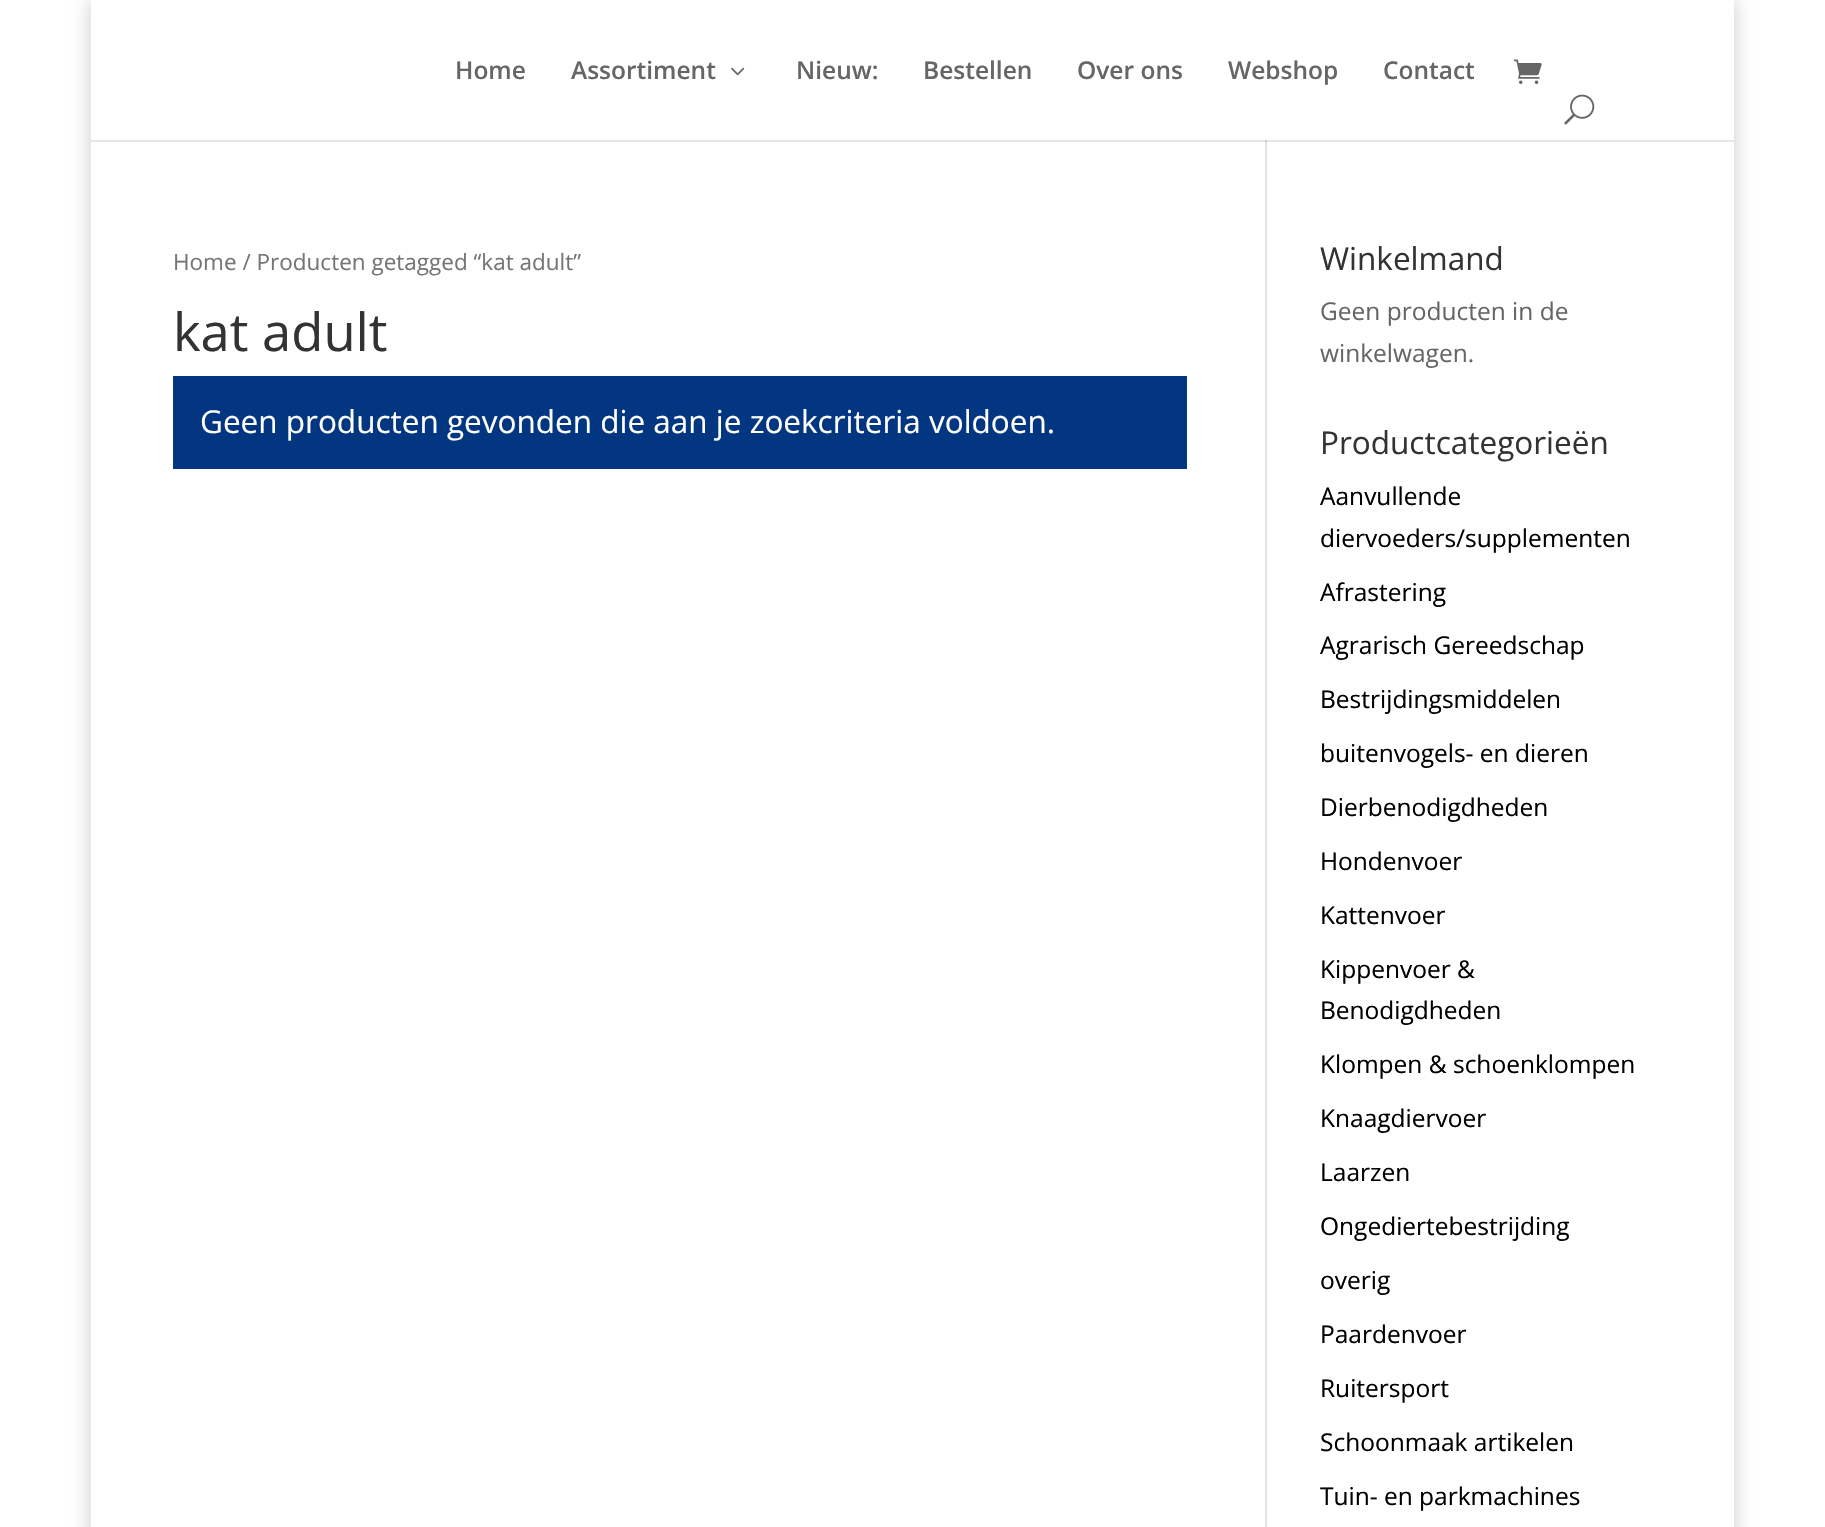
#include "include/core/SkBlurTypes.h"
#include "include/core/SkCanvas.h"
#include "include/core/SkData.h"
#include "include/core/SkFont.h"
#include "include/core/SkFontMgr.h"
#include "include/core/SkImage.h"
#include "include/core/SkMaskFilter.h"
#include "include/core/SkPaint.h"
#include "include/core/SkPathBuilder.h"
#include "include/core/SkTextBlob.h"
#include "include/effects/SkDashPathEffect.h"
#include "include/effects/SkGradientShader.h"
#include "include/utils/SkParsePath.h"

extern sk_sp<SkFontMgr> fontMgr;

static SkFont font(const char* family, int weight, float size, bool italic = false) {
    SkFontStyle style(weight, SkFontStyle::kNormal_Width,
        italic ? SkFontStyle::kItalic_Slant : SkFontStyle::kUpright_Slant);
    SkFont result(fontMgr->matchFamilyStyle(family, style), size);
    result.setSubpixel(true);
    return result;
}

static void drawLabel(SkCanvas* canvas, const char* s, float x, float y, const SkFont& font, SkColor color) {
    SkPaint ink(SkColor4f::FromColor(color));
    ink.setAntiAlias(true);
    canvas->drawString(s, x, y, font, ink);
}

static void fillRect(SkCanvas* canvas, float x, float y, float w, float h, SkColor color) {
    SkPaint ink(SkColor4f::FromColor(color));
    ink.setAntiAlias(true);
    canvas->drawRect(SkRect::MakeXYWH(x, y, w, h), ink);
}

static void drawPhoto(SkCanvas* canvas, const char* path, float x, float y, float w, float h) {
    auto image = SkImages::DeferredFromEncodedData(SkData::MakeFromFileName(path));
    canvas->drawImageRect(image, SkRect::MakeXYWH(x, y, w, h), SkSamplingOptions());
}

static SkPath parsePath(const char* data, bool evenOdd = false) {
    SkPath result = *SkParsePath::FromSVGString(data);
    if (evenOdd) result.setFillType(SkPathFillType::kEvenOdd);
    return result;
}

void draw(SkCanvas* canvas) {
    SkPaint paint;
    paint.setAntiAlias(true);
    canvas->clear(0xFFFFFFFF);
    fillRect(canvas, 91, 140, 1643, 2, 0xFFE6E6E6);
    canvas->save();
    canvas->clipPath(parsePath("M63 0H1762V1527H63ZM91 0H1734V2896H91Z", true), true);
    paint.setColor(0x33000000);
    paint.setMaskFilter(SkMaskFilter::MakeBlur(kNormal_SkBlurStyle, 9));
    canvas->drawRect(SkRect::MakeXYWH(91, 0, 1643, 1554), paint);
    paint.setMaskFilter(nullptr);
    canvas->restore();
    SkFont font1 = font("Open Sans", 600, 24.5f);
    drawLabel(canvas, "Home", 455, 79, font1, 0xFF666666);
    drawLabel(canvas, "Assortiment", 571, 79, font1, 0xFF666666);
    drawPhoto(canvas, "assets/img1.png", 731, 67, 14, 9);
    drawLabel(canvas, "Nieuw:", 796, 79, font1, 0xFF666666);
    drawLabel(canvas, "Bestellen", 923, 79, font1, 0xFF666666);
    drawLabel(canvas, "Over ons", 1077, 79, font1, 0xFF666666);
    drawLabel(canvas, "Webshop", 1228, 79, font1, 0xFF666666);
    drawLabel(canvas, "Contact", 1383, 79, font1, 0xFF666666);
    drawPhoto(canvas, "assets/img2.png", 1513, 59, 29, 25);
    drawPhoto(canvas, "assets/img3.png", 1564, 94, 31, 31);
    fillRect(canvas, 1265, 140, 2, 1387, 0xFFE2E2E2);
    fillRect(canvas, 1265, 140, 2, 2, 0xFFCBCBCB);
    SkFont font2 = font("Open Sans", 400, 22.5f);
    drawLabel(canvas, "Home / Producten getagged “kat adult”", 173, 270, font2, 0xFF767676);
    SkFont font3 = font("Open Sans", 400, 52.5f);
    drawLabel(canvas, "kat adult", 173, 351, font3, 0xFF333333);
    fillRect(canvas, 173, 376, 1014, 93, 0xFF023680);
    SkFont font4 = font("Open Sans", 400, 31.5f);
    drawLabel(canvas, "Geen producten gevonden die aan je zoekcriteria voldoen.", 200, 433, font4, 0xFFFFFFFF);
    drawLabel(canvas, "Winkelmand", 1320, 270, font4, 0xFF333333);
    SkFont font5 = font("Open Sans", 400, 24.5f);
    drawLabel(canvas, "Geen producten in de", 1320, 320, font5, 0xFF666666);
    drawLabel(canvas, "winkelwagen.", 1320, 362, font5, 0xFF666666);
    drawLabel(canvas, "Productcategorieën", 1320, 454, font4, 0xFF333333);
    drawLabel(canvas, "Aanvullende", 1320, 505, font5, 0xFF000000);
    drawLabel(canvas, "diervoeders/supplementen", 1320, 547, font5, 0xFF000000);
    drawLabel(canvas, "Afrastering", 1320, 601, font5, 0xFF000000);
    drawLabel(canvas, "Agrarisch Gereedschap", 1320, 654, font5, 0xFF000000);
    drawLabel(canvas, "Bestrijdingsmiddelen", 1320, 708, font5, 0xFF000000);
    drawLabel(canvas, "buitenvogels- en dieren", 1320, 762, font5, 0xFF000000);
    drawLabel(canvas, "Dierbenodigdheden", 1320, 816, font5, 0xFF000000);
    drawLabel(canvas, "Hondenvoer", 1320, 870, font5, 0xFF000000);
    drawLabel(canvas, "Kattenvoer", 1320, 924, font5, 0xFF000000);
    drawLabel(canvas, "Kippenvoer &", 1320, 978, font5, 0xFF000000);
    drawLabel(canvas, "Benodigdheden", 1320, 1019, font5, 0xFF000000);
    drawLabel(canvas, "Klompen & schoenklompen", 1320, 1073, font5, 0xFF000000);
    drawLabel(canvas, "Knaagdiervoer", 1320, 1127, font5, 0xFF000000);
    drawLabel(canvas, "Laarzen", 1320, 1181, font5, 0xFF000000);
    drawLabel(canvas, "Ongediertebestrijding", 1320, 1235, font5, 0xFF000000);
    drawLabel(canvas, "overig", 1320, 1289, font5, 0xFF000000);
    drawLabel(canvas, "Paardenvoer", 1320, 1343, font5, 0xFF000000);
    drawLabel(canvas, "Ruitersport", 1320, 1397, font5, 0xFF000000);
    drawLabel(canvas, "Schoonmaak artikelen", 1320, 1451, font5, 0xFF000000);
    drawLabel(canvas, "Tuin- en parkmachines", 1320, 1505, font5, 0xFF000000);
}
